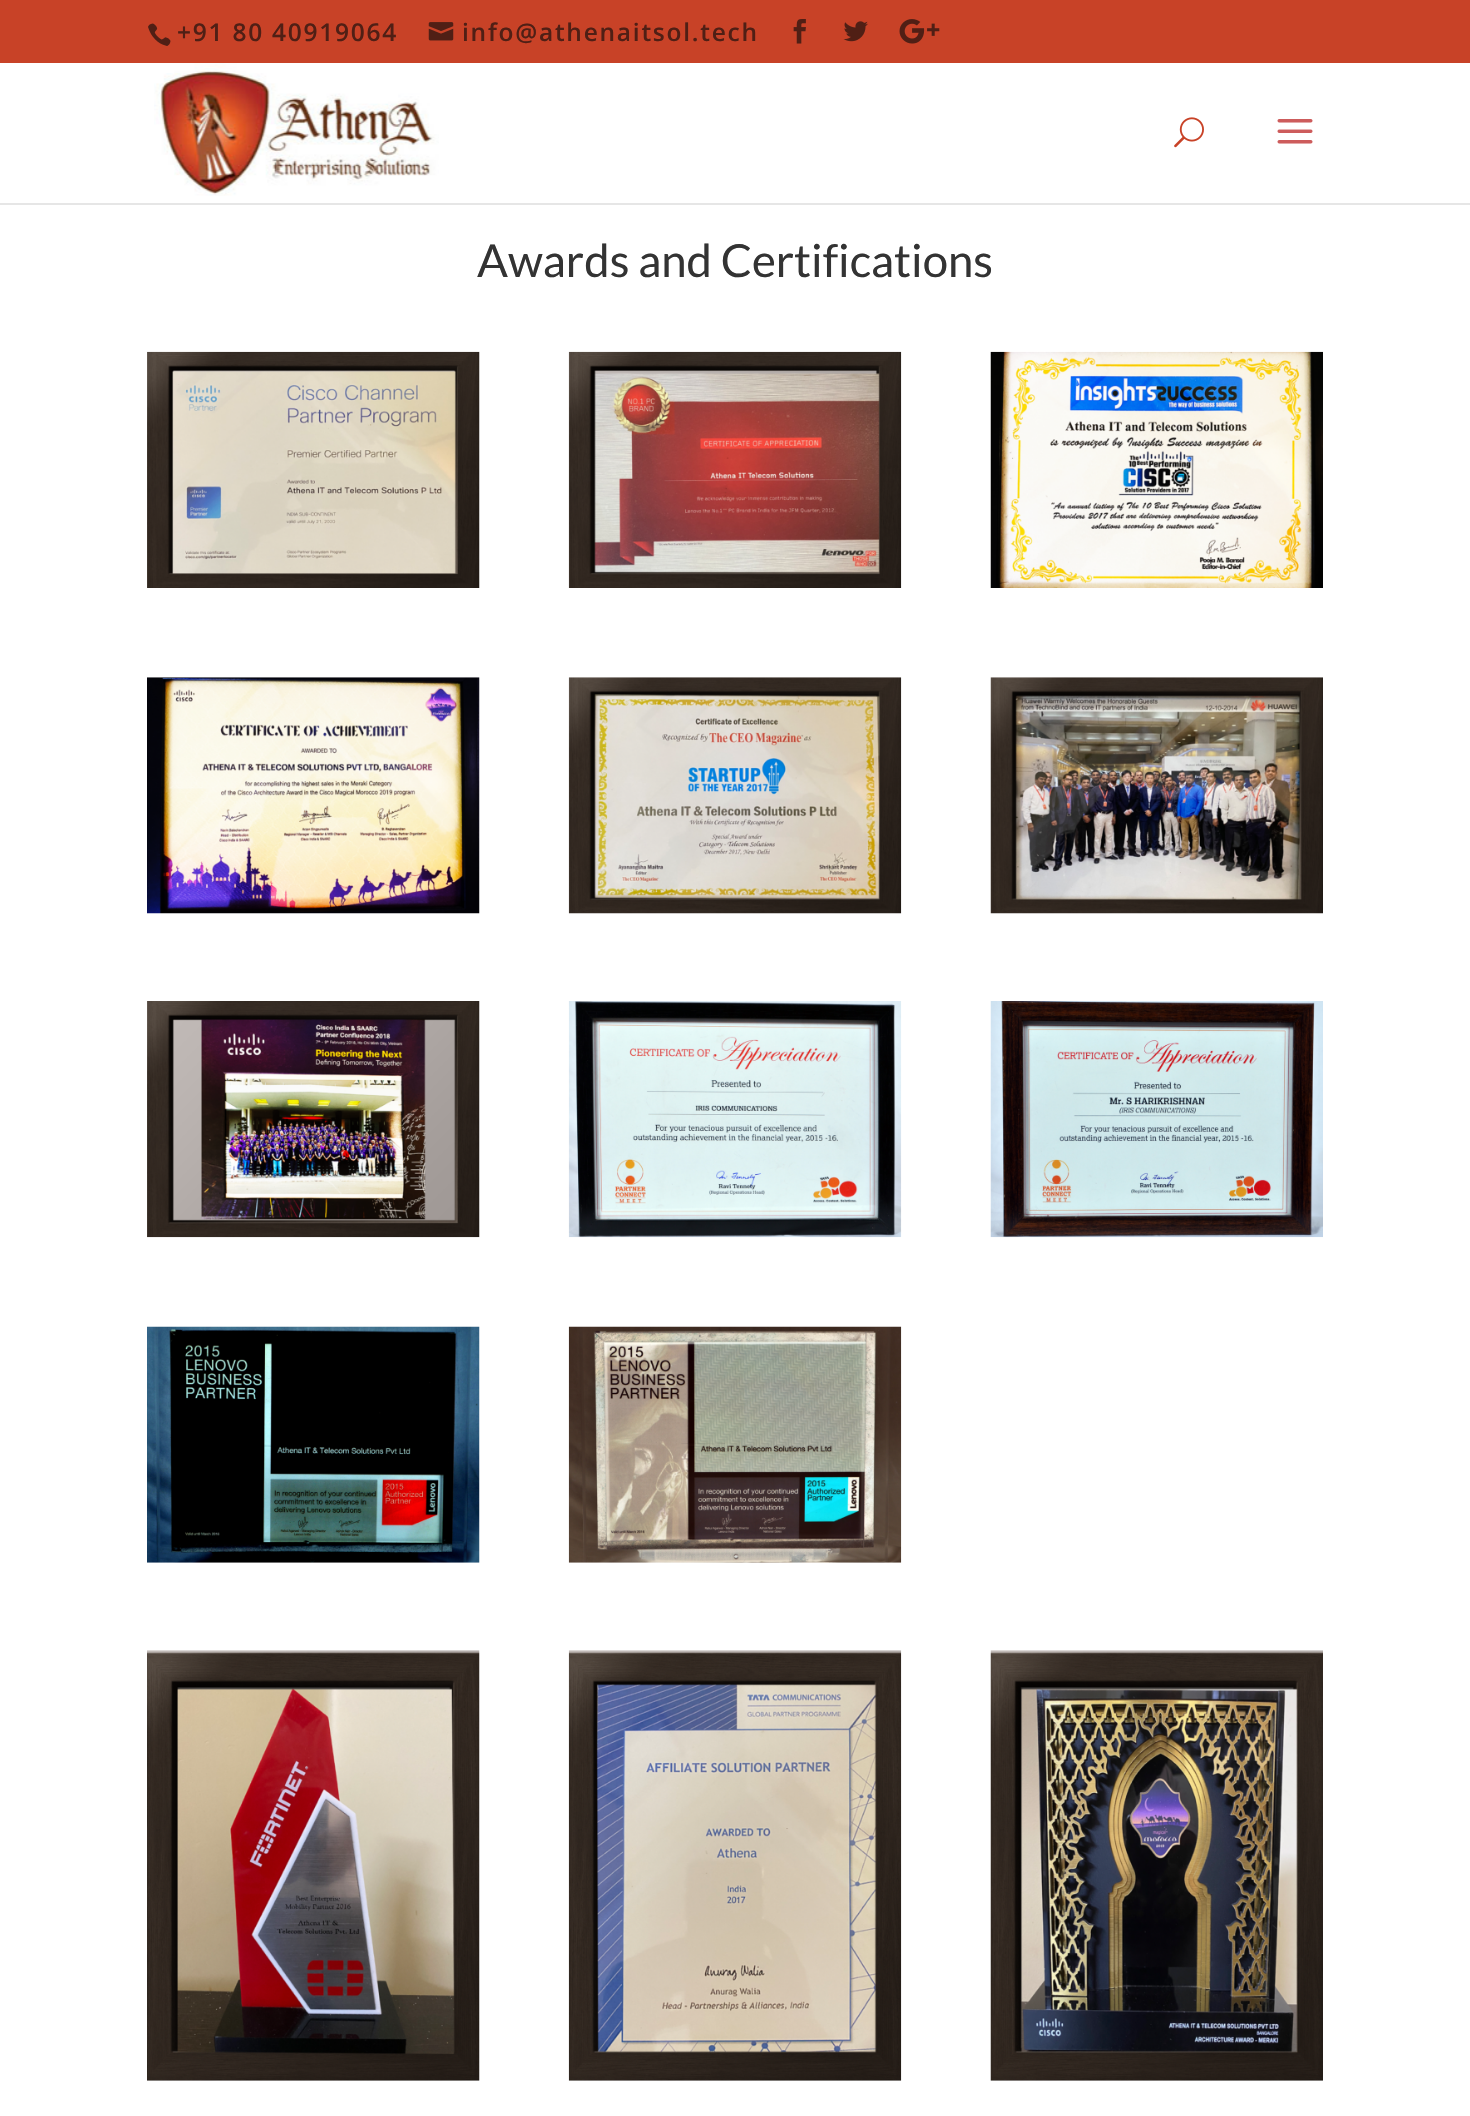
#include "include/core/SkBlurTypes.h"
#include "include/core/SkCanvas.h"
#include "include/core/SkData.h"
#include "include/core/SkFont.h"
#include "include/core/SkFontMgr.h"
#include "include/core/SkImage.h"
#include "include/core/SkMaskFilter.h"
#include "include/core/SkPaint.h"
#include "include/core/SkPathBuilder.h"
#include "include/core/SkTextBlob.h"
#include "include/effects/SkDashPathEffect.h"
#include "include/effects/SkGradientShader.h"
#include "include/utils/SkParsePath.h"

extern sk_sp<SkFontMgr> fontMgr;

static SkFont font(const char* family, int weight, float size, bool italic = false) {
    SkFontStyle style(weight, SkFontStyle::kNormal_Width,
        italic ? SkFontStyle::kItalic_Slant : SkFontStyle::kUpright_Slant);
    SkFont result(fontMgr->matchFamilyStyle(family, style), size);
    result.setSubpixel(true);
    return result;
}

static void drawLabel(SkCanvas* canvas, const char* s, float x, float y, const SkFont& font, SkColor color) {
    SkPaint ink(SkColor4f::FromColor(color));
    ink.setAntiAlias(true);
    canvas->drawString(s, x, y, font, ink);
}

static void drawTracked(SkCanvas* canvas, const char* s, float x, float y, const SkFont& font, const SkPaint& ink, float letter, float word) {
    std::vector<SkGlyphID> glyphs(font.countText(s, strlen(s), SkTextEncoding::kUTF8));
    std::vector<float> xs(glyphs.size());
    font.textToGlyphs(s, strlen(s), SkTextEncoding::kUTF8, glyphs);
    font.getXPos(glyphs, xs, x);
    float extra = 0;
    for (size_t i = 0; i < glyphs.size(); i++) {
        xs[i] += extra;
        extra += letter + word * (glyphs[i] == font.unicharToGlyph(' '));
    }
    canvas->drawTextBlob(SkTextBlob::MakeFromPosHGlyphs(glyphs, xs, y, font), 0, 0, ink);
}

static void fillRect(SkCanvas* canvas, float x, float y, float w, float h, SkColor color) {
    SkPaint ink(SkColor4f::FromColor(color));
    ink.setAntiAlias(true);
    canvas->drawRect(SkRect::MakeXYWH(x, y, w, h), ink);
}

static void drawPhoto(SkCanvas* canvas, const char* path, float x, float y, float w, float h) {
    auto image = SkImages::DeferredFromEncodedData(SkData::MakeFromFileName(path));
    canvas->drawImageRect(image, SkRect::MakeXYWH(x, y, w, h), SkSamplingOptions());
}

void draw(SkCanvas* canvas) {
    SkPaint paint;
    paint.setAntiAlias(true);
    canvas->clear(0xFFFFFFFF);
    fillRect(canvas, 0, 0, 1470, 63, 0xFFC84227);
    drawPhoto(canvas, "assets/img1.png", 148, 23, 23, 23);
    SkFont font1 = font("Open Sans", 600, 24.5f);
    paint.setColor(0xFF501F15);
    drawTracked(canvas, "+91 80 40919064", 177, 41, font1, paint, 1.75f, 0);
    drawPhoto(canvas, "assets/img2.png", 428, 22, 26, 19);
    drawTracked(canvas, "info@athenaitsol.tech", 462, 41, font1, paint, 1.75f, 0);
    drawPhoto(canvas, "assets/img3.png", 793, 19, 13, 25);
    drawPhoto(canvas, "assets/img4.png", 843, 21, 25, 21);
    drawPhoto(canvas, "assets/img5.png", 899, 19, 41, 25);
    fillRect(canvas, 0, 203, 1470, 2, 0xFFE6E6E6);
    drawPhoto(canvas, "assets/img6.png", 154, 63, 285, 133);
    drawPhoto(canvas, "assets/img7.png", 1174, 117, 30, 31);
    drawPhoto(canvas, "assets/img8.png", 1277, 119, 36, 25);
    SkFont font2 = font("Lato", 400, 45.5f);
    drawLabel(canvas, "Awards and Certifications", 477, 277, font2, 0xFF333333);
    drawPhoto(canvas, "assets/img9.png", 147, 351, 333, 237);
    drawPhoto(canvas, "assets/img10.png", 568, 351, 334, 237);
    drawPhoto(canvas, "assets/img11.png", 990, 351, 333, 237);
    drawPhoto(canvas, "assets/img12.png", 147, 677, 333, 237);
    drawPhoto(canvas, "assets/img13.png", 568, 677, 334, 237);
    drawPhoto(canvas, "assets/img14.png", 990, 677, 333, 237);
    drawPhoto(canvas, "assets/img15.png", 147, 1001, 333, 237);
    drawPhoto(canvas, "assets/img16.png", 568, 1001, 334, 237);
    drawPhoto(canvas, "assets/img17.png", 990, 1001, 333, 237);
    drawPhoto(canvas, "assets/img18.png", 147, 1326, 333, 237);
    drawPhoto(canvas, "assets/img19.png", 568, 1326, 334, 237);
    drawPhoto(canvas, "assets/img20.png", 147, 1650, 333, 431);
    drawPhoto(canvas, "assets/img21.png", 568, 1650, 334, 431);
    drawPhoto(canvas, "assets/img22.png", 990, 1650, 333, 431);
}
